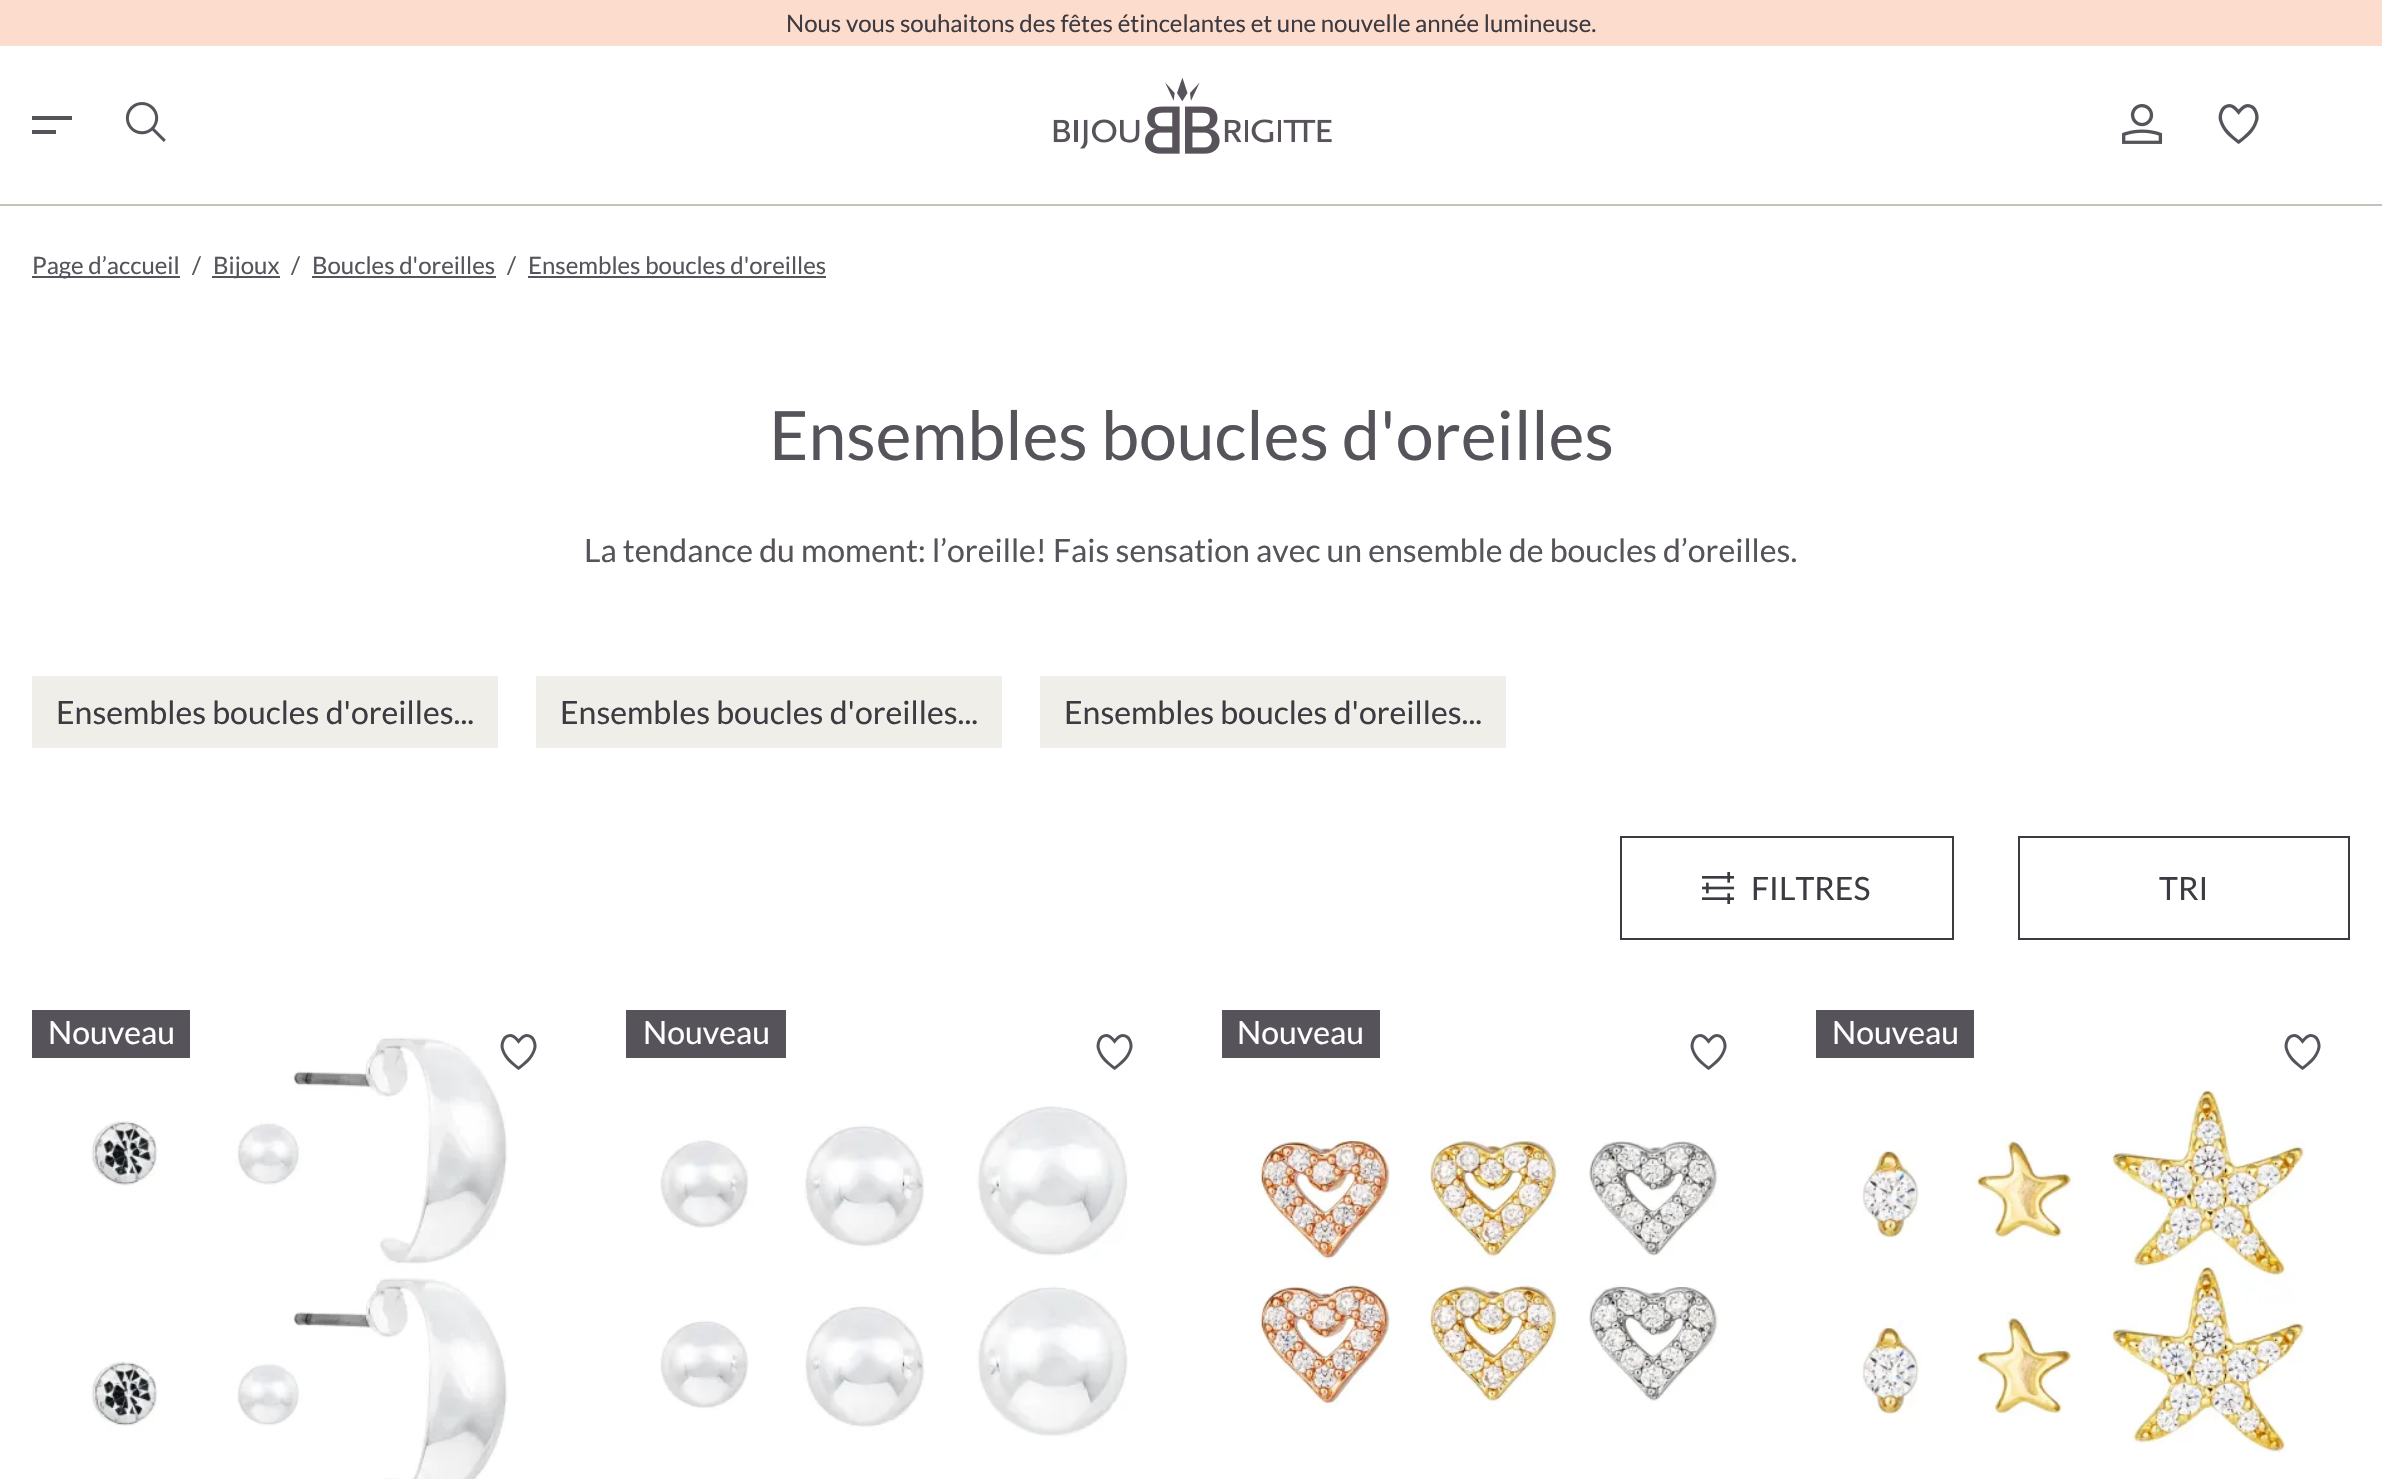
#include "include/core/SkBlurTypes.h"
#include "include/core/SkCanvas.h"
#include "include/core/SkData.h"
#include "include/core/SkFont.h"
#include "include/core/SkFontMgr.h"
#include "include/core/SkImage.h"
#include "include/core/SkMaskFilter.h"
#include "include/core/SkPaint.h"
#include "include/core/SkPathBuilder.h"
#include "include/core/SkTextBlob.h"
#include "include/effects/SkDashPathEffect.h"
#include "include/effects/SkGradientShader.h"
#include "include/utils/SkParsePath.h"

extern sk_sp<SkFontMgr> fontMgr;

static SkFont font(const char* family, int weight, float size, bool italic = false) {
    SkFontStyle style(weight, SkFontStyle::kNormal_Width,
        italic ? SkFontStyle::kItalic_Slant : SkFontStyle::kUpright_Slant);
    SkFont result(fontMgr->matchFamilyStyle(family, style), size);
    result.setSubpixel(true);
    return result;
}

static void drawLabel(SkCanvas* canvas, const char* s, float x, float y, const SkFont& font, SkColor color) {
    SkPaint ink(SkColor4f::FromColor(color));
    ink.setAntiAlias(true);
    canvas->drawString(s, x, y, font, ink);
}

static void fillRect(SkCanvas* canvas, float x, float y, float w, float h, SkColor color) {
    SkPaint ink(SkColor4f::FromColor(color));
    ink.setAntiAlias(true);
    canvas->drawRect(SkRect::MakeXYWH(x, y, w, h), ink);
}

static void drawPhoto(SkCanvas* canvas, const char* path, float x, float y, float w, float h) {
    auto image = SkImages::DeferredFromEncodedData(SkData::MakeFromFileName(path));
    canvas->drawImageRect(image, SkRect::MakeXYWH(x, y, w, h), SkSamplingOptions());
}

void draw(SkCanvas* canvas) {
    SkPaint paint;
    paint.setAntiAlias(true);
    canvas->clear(0xFFFFFFFF);
    fillRect(canvas, 0, 204, 2382, 2, 0xFFC2C1BA);
    fillRect(canvas, 0, 0, 2382, 46, 0xFFFCDCCD);
    SkFont font1 = font("Lato", 400, 24);
    drawLabel(canvas, "Nous vous souhaitons des fêtes étincelantes et une nouvelle année lumineuse.", 786, 32, font1, 0xFF3D3A41);
    fillRect(canvas, 32, 116, 40, 4, 0xFF57535A);
    fillRect(canvas, 32, 130, 24, 4, 0xFF57535A);
    drawPhoto(canvas, "assets/img1.png", 125, 102, 41, 40);
    drawPhoto(canvas, "assets/img2.png", 1053, 77, 279, 77);
    drawPhoto(canvas, "assets/img3.png", 2122, 104, 41, 40);
    drawPhoto(canvas, "assets/img4.png", 2218, 104, 41, 40);
    fillRect(canvas, 32, 276, 148, 2, 0xFF57535A);
    drawLabel(canvas, "Page d’accueil", 32, 274, font1, 0xFF57535A);
    drawLabel(canvas, "/", 192, 274, font1, 0xFF57535A);
    fillRect(canvas, 212, 276, 68, 2, 0xFF57535A);
    drawLabel(canvas, "Bijoux", 213, 274, font1, 0xFF57535A);
    drawLabel(canvas, "/", 291, 274, font1, 0xFF57535A);
    drawLabel(canvas, "Boucles d'oreilles", 312, 274, font1, 0xFF57535A);
    fillRect(canvas, 312, 276, 184, 2, 0xFF57535A);
    drawLabel(canvas, "/", 507, 274, font1, 0xFF57535A);
    drawLabel(canvas, "Ensembles boucles d'oreilles", 528, 274, font1, 0xFF57535A);
    fillRect(canvas, 528, 276, 298, 2, 0xFF57535A);
    SkFont font2 = font("Lato", 400, 68);
    drawLabel(canvas, "Ensembles boucles d'oreilles", 769, 460, font2, 0xFF57535A);
    SkFont font3 = font("Lato", 400, 32);
    drawLabel(canvas, "La tendance du moment: l’oreille! Fais sensation avec un ensemble de boucles d’oreilles.", 584, 562, font3, 0xFF57535A);
    fillRect(canvas, 32, 676, 466, 72, 0xFFF0EEE9);
    drawLabel(canvas, "Ensembles boucles d'oreilles...", 56, 724, font3, 0xFF3D3A41);
    fillRect(canvas, 536, 676, 466, 72, 0xFFF0EEE9);
    drawLabel(canvas, "Ensembles boucles d'oreilles...", 560, 724, font3, 0xFF3D3A41);
    fillRect(canvas, 1040, 676, 466, 72, 0xFFF0EEE9);
    drawLabel(canvas, "Ensembles boucles d'oreilles...", 1064, 724, font3, 0xFF3D3A41);
    paint.setStroke(true);
    paint.setStrokeWidth(2);
    paint.setColor(0xFF3D3A41);
    canvas->drawRect(SkRect::MakeXYWH(1621, 837, 332, 102), paint);
    drawPhoto(canvas, "assets/img5.png", 1702, 872, 33, 32);
    drawLabel(canvas, "FILTRES", 1751, 900, font3, 0xFF3D3A41);
    canvas->drawRect(SkRect::MakeXYWH(2019, 837, 330, 102), paint);
    drawLabel(canvas, "TRI", 2159, 900, font3, 0xFF3D3A41);
    drawPhoto(canvas, "assets/img7.png", 91, 1035, 417, 444);
    fillRect(canvas, 32, 1010, 158, 48, 0xFF57535A);
    drawLabel(canvas, "Nouveau", 48, 1044, font3, 0xFFFFFFFF);
    drawPhoto(canvas, "assets/img6.png", 500, 1034, 37, 36);
    fillRect(canvas, 626, 1010, 160, 48, 0xFF57535A);
    drawLabel(canvas, "Nouveau", 643, 1044, font3, 0xFFFFFFFF);
    drawPhoto(canvas, "assets/img6.png", 1096, 1034, 37, 36);
    drawPhoto(canvas, "assets/img8.png", 660, 1106, 468, 331);
    fillRect(canvas, 1222, 1010, 158, 48, 0xFF57535A);
    drawLabel(canvas, "Nouveau", 1237, 1044, font3, 0xFFFFFFFF);
    drawPhoto(canvas, "assets/img6.png", 1690, 1034, 37, 36);
    drawPhoto(canvas, "assets/img9.png", 1257, 1136, 463, 272);
    fillRect(canvas, 1816, 1010, 158, 48, 0xFF57535A);
    drawLabel(canvas, "Nouveau", 1832, 1044, font3, 0xFFFFFFFF);
    drawPhoto(canvas, "assets/img6.png", 2284, 1034, 37, 36);
    drawPhoto(canvas, "assets/img10.png", 1862, 1089, 443, 364);
}
